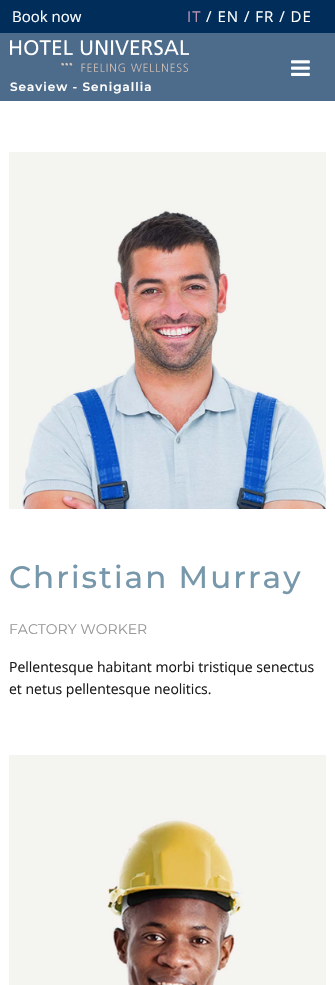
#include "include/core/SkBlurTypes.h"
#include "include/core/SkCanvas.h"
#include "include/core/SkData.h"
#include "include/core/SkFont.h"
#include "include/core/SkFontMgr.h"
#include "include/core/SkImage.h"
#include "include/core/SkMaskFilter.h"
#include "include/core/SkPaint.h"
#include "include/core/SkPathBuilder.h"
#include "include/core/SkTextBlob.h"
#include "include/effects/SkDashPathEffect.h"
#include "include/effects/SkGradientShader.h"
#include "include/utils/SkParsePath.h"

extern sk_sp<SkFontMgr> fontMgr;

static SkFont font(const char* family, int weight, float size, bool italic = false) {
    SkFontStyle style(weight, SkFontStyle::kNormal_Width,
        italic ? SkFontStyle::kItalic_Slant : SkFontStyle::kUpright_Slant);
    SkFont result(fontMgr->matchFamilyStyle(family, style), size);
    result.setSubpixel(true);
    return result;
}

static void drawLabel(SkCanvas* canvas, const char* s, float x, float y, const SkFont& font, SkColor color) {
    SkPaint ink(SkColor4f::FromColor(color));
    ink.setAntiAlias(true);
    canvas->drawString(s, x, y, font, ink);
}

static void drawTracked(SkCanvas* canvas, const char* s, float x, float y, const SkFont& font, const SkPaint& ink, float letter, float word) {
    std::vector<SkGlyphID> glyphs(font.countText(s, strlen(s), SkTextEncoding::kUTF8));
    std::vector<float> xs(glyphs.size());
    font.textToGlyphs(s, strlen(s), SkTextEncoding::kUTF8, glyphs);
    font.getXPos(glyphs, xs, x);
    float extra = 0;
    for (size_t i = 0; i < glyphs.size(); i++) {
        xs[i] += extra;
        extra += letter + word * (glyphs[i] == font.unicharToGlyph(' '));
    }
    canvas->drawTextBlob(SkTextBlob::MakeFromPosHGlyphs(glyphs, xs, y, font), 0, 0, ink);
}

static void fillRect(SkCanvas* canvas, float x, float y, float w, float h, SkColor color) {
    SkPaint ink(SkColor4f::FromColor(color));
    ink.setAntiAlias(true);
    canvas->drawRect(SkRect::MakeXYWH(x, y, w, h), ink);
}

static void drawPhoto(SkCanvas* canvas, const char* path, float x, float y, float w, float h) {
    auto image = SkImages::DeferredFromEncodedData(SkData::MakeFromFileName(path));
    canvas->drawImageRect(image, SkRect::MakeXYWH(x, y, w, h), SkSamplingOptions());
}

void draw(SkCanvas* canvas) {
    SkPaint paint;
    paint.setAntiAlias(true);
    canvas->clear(0xFFFFFFFF);
    fillRect(canvas, 0, 0, 335, 33, 0xFF002D5A);
    SkFont font1 = font("Open Sans", 400, 15);
    drawLabel(canvas, "Book now", 12, 22, font1, 0xFFFFFFFF);
    paint.setColor(0xFFB793B1);
    drawTracked(canvas, "IT", 187, 22, font1, paint, 1, 0);
    paint.setColor(0xFFFFFFFF);
    drawTracked(canvas, "/ EN / FR / DE", 206, 22, font1, paint, 1, 0);
    fillRect(canvas, 0, 33, 335, 68, 0xFF4D6C8C);
    drawPhoto(canvas, "assets/img1.png", 291, 60, 19, 16);
    drawPhoto(canvas, "assets/img2.png", 10, 40, 179, 32);
    SkFont font2 = font("Montserrat", 600, 12);
    drawTracked(canvas, "Seaview - Senigallia", 10, 91, font2, paint, 1, 0);
    drawPhoto(canvas, "assets/img3.png", 9, 152, 317, 357);
    SkFont font3 = font("Montserrat", 500, 31);
    paint.setColor(0xFF7798AB);
    drawTracked(canvas, "Christian Murray", 9, 588, font3, paint, 2, 0);
    SkFont font4 = font("Montserrat", 400, 14);
    drawLabel(canvas, "FACTORY WORKER", 9, 634, font4, 0xFF989899);
    SkFont font5 = font("Open Sans", 400, 14);
    drawLabel(canvas, "Pellentesque habitant morbi tristique senectus", 9, 672, font5, 0xFF1A1A1A);
    drawLabel(canvas, "et netus pellentesque neolitics.", 9, 694, font5, 0xFF1A1A1A);
    drawPhoto(canvas, "assets/img4.png", 9, 755, 317, 230);
}
